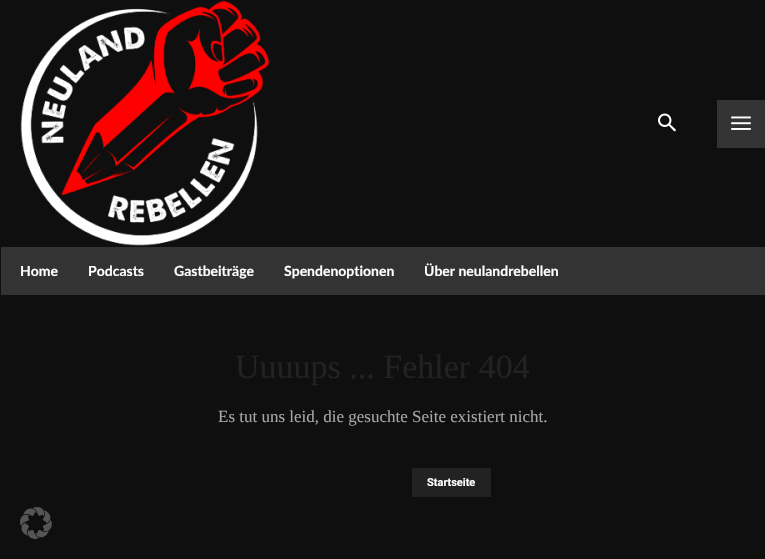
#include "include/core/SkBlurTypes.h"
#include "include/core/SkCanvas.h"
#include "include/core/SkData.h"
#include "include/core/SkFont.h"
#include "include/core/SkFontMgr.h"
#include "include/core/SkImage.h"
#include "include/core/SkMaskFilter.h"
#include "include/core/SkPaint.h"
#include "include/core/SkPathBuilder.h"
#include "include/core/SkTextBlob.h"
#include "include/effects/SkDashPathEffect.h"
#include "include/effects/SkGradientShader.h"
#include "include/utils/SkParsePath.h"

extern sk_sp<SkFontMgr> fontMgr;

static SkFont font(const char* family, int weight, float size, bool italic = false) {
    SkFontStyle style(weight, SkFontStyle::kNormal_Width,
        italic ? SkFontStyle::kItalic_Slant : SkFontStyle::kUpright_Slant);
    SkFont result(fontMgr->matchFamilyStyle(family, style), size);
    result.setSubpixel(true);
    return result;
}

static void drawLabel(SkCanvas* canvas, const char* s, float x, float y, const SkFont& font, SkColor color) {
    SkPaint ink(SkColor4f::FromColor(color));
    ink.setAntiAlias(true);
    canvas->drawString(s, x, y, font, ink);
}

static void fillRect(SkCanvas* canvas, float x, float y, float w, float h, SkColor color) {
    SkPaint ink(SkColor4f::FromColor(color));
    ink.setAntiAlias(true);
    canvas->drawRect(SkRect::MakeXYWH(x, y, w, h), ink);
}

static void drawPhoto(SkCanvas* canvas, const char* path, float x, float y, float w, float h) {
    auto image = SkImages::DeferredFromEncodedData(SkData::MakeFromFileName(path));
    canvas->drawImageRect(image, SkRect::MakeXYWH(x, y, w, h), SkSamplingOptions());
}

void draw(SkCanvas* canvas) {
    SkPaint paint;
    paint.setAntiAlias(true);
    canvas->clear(0xFF0F0F0F);
    drawPhoto(canvas, "assets/img1.png", 20, 0, 250, 246);
    drawPhoto(canvas, "assets/img2.png", 658, 113, 18, 19);
    fillRect(canvas, 717, 100, 48, 48, 0xFF333333);
    drawPhoto(canvas, "assets/img3.png", 731, 116, 20, 14);
    fillRect(canvas, 1, 247, 764, 48, 0xFF333333);
    SkFont font1 = font("Lato", 700, 14);
    drawLabel(canvas, "Home", 20, 276, font1, 0xFFFFFFFF);
    drawLabel(canvas, "Podcasts", 88, 276, font1, 0xFFFFFFFF);
    drawLabel(canvas, "Gastbeiträge", 174, 276, font1, 0xFFFFFFFF);
    drawLabel(canvas, "Spendenoptionen", 284, 276, font1, 0xFFFFFFFF);
    drawLabel(canvas, "Über neulandrebellen", 424, 276, font1, 0xFFFFFFFF);
    SkFont font2 = font("Liberation Serif", 400, 34);
    drawLabel(canvas, "Uuuups ... Fehler 404", 235, 378, font2, 0xFF222222);
    SkFont font3 = font("Liberation Serif", 400, 17);
    drawLabel(canvas, "Es tut uns leid, die gesuchte Seite existiert nicht.", 218, 422, font3, 0xFFA6A6A6);
    fillRect(canvas, 412, 468, 79, 29, 0xFF222222);
    SkFont font4 = font("Roboto", 700, 11);
    drawLabel(canvas, "Startseite", 427, 486, font4, 0xFFFFFFFF);
    drawPhoto(canvas, "assets/img4.png", 20, 507, 32, 32);
}
